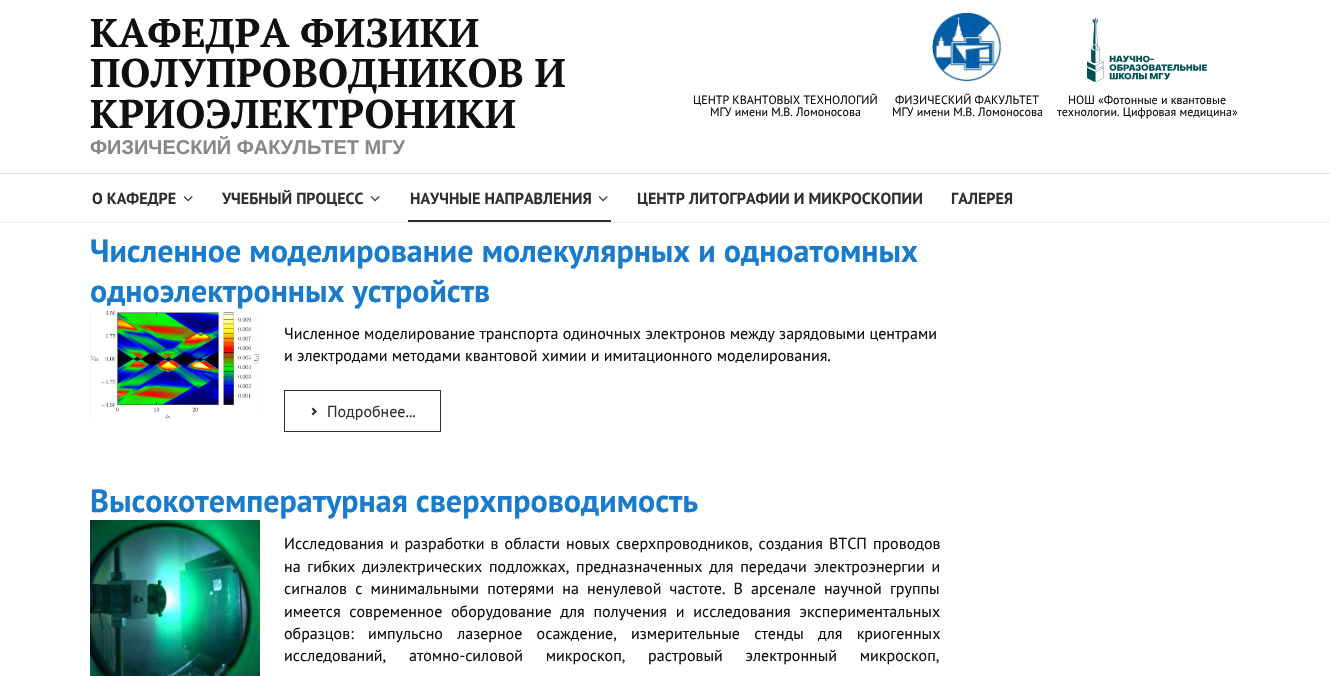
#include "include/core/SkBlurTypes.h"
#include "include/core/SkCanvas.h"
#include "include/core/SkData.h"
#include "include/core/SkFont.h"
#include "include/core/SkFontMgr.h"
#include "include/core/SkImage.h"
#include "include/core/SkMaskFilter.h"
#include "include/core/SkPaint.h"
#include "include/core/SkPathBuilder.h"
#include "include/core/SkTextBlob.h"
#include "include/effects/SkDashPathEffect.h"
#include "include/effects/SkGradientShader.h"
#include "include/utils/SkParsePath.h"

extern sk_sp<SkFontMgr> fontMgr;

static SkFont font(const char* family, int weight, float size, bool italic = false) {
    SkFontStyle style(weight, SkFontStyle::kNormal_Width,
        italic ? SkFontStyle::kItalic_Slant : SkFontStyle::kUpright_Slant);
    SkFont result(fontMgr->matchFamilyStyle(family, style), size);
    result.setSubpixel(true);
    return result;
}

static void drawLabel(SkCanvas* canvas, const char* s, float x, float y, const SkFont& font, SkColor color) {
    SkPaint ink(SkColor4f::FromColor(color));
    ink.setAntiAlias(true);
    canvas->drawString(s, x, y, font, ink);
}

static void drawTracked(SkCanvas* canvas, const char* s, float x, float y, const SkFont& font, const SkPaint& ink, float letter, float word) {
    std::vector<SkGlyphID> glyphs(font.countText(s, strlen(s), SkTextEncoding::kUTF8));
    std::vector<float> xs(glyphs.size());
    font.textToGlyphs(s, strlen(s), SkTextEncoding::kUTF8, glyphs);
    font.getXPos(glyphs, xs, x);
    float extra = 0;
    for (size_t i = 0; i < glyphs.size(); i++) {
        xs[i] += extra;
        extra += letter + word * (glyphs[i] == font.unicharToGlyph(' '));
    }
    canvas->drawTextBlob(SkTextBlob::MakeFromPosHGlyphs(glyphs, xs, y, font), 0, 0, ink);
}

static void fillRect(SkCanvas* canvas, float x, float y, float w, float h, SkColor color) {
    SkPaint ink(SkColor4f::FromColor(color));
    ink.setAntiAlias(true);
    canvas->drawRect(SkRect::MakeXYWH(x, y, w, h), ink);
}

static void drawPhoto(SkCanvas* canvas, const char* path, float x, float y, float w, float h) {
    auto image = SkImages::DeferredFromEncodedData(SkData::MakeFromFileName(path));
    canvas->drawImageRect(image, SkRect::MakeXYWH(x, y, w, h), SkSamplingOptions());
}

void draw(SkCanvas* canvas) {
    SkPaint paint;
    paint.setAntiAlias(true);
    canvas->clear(0xFFFFFFFF);
    fillRect(canvas, 0, 173, 1330, 1, 0xFFE0E0E0);
    SkFont font1 = font("PT Serif", 700, 40);
    drawLabel(canvas, "КАФЕДРА ФИЗИКИ", 90, 47, font1, 0xFF101010);
    drawLabel(canvas, "ПОЛУПРОВОДНИКОВ И", 90, 87, font1, 0xFF101010);
    drawLabel(canvas, "КРИОЭЛЕКТРОНИКИ", 90, 128, font1, 0xFF101010);
    SkFont font2 = font("Liberation Sans", 700, 20);
    drawLabel(canvas, "ФИЗИЧЕСКИЙ ФАКУЛЬТЕТ МГУ", 90, 154, font2, 0xFF888888);
    SkFont font3 = font("PT Sans", 400, 12);
    drawLabel(canvas, "ЦЕНТР КВАНТОВЫХ ТЕХНОЛОГИЙ", 693, 104, font3, 0xFF101010);
    drawLabel(canvas, "МГУ имени М.В. Ломоносова", 710, 116, font3, 0xFF101010);
    drawPhoto(canvas, "assets/img1.png", 932, 12, 70, 70);
    drawLabel(canvas, "ФИЗИЧЕСКИЙ ФАКУЛЬТЕТ", 895, 104, font3, 0xFF101010);
    drawLabel(canvas, "МГУ имени М.В. Ломоносова", 892, 116, font3, 0xFF101010);
    drawPhoto(canvas, "assets/img2.png", 1087, 18, 120, 64);
    drawLabel(canvas, "НОШ «Фотонные и квантовые", 1068, 104, font3, 0xFF101010);
    drawLabel(canvas, "технологии. Цифровая медицина»", 1057, 116, font3, 0xFF101010);
    fillRect(canvas, 0, 222, 1330, 1, 0xFFEEEEEE);
    SkFont font4 = font("PT Sans", 700, 16);
    drawLabel(canvas, "О КАФЕДРЕ", 92, 204, font4, 0xFF303030);
    drawPhoto(canvas, "assets/img3.png", 183, 196, 10, 6);
    drawLabel(canvas, "УЧЕБНЫЙ ПРОЦЕСС", 222, 204, font4, 0xFF303030);
    drawPhoto(canvas, "assets/img3.png", 370, 196, 10, 6);
    drawLabel(canvas, "НАУЧНЫЕ НАПРАВЛЕНИЯ", 410, 204, font4, 0xFF303030);
    drawPhoto(canvas, "assets/img3.png", 598, 196, 10, 6);
    fillRect(canvas, 408, 220, 203, 2, 0xFF303030);
    drawLabel(canvas, "ЦЕНТР ЛИТОГРАФИИ И МИКРОСКОПИИ", 637, 204, font4, 0xFF303030);
    drawLabel(canvas, "ГАЛЕРЕЯ", 951, 204, font4, 0xFF303030);
    SkFont font5 = font("PT Sans", 700, 32);
    drawLabel(canvas, "Численное моделирование молекулярных и одноатомных", 90, 262, font5, 0xFF197BCC);
    drawLabel(canvas, "одноэлектронных устройств", 90, 302, font5, 0xFF197BCC);
    drawPhoto(canvas, "assets/img4.png", 90, 310, 170, 109);
    SkFont font6 = font("PT Sans", 400, 16);
    drawLabel(canvas, "Численное моделирование транспорта одиночных электронов между зарядовыми центрами", 284, 339, font6, 0xFF101010);
    drawLabel(canvas, "и электродами методами квантовой химии и имитационного моделирования.", 284, 361, font6, 0xFF101010);
    paint.setStroke(true);
    paint.setStrokeWidth(1);
    paint.setColor(0xFF303030);
    canvas->drawRect(SkRect::MakeXYWH(284.5f, 390.5f, 156, 41), paint);
    drawPhoto(canvas, "assets/img5.png", 311, 407, 6, 9);
    drawLabel(canvas, "Подробнее...", 327, 417, font6, 0xFF303030);
    drawLabel(canvas, "Высокотемпературная сверхпроводимость", 90, 512, font5, 0xFF197BCC);
    drawPhoto(canvas, "assets/img6.png", 90, 520, 170, 156);
    paint.setStroke(false);
    paint.setColor(0xFF101010);
    drawTracked(canvas, "Исследования и разработки в области новых сверхпроводников, создания ВТСП проводов", 284, 549, font6, paint, 0, 1.75f);
    drawTracked(canvas, "на гибких диэлектрических подложках, предназначенных для передачи электроэнергии и", 284, 572, font6, paint, 0, 2.5f);
    drawTracked(canvas, "сигналов с минимальными потерями на ненулевой частоте. В арсенале научной группы", 284, 594, font6, paint, 0, 3.9f);
    drawTracked(canvas, "имеется современное оборудование для получения и исследования экспериментальных", 284, 617, font6, paint, 0, 4.5f);
    drawTracked(canvas, "образцов: импульсно лазерное осаждение, измерительные стенды для криогенных", 284, 639, font6, paint, 0, 10);
    drawTracked(canvas, "исследований, атомно-силовой микроскоп, растровый электронный микроскоп,", 284, 661, font6, paint, 0, 18.5f);
}
